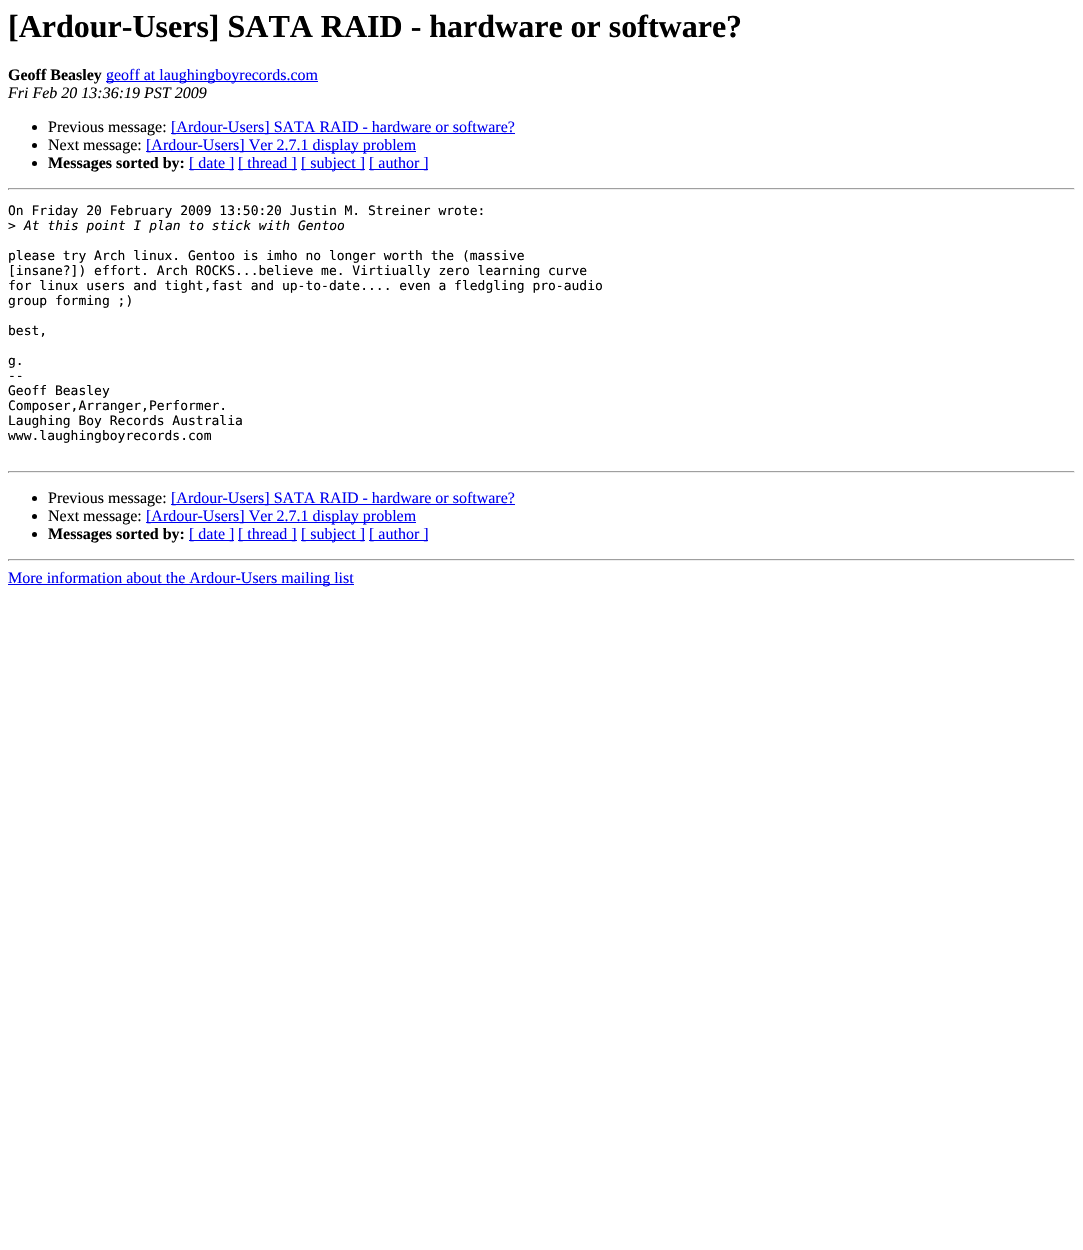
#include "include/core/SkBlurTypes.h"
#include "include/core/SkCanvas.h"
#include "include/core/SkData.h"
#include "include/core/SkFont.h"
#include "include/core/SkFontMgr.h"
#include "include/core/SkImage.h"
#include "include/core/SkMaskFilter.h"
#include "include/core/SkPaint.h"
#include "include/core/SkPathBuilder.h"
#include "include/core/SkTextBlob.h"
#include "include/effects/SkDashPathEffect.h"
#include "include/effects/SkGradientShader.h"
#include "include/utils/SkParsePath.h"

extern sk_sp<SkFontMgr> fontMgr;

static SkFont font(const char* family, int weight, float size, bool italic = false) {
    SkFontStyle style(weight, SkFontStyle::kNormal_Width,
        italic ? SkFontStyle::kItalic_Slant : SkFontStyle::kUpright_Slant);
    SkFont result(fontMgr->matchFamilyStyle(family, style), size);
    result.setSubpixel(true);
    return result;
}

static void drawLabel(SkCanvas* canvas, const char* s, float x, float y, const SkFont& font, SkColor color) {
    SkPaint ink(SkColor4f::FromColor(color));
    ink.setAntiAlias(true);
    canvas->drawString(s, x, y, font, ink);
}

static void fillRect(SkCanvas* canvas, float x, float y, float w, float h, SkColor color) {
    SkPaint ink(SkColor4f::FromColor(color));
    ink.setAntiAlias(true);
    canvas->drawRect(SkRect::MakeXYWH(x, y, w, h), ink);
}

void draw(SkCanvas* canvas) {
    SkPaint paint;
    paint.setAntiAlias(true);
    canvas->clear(0xFFFFFFFF);
    SkFont font1 = font("Liberation Serif", 700, 32);
    drawLabel(canvas, "[Ardour-Users] SATA RAID - hardware or software?", 8, 37, font1, 0xFF000000);
    SkFont font2 = font("Liberation Serif", 700, 16);
    drawLabel(canvas, "Geoff Beasley", 8, 80, font2, 0xFF000000);
    fillRect(canvas, 106, 81, 212, 1, 0xFF0000EE);
    SkFont font3 = font("Liberation Serif", 400, 16);
    drawLabel(canvas, "geoff at laughingboyrecords.com", 106, 80, font3, 0xFF0000EE);
    SkFont font4 = font("Liberation Serif", 400, 16, true);
    drawLabel(canvas, "Fri Feb 20 13:36:19 PST 2009", 8, 98, font4, 0xFF000000);
    paint.setColor(0xFF000000);
    canvas->drawCircle(34.5f, 127.5f, 2.5f, paint);
    drawLabel(canvas, "Previous message:", 48, 132, font3, 0xFF000000);
    fillRect(canvas, 171, 133, 344, 1, 0xFF0000EE);
    drawLabel(canvas, "[Ardour-Users] SATA RAID - hardware or software?", 171, 132, font3, 0xFF0000EE);
    canvas->drawCircle(34.5f, 145.5f, 2.5f, paint);
    drawLabel(canvas, "Next message:", 48, 150, font3, 0xFF000000);
    fillRect(canvas, 146, 151, 270, 1, 0xFF0000EE);
    drawLabel(canvas, "[Ardour-Users] Ver 2.7.1 display problem", 146, 150, font3, 0xFF0000EE);
    canvas->drawCircle(34.5f, 163.5f, 2.5f, paint);
    drawLabel(canvas, "Messages sorted by:", 48, 168, font2, 0xFF000000);
    fillRect(canvas, 189, 169, 45, 1, 0xFF0000EE);
    drawLabel(canvas, "[ date ]", 189, 168, font3, 0xFF0000EE);
    fillRect(canvas, 238, 169, 59, 1, 0xFF0000EE);
    drawLabel(canvas, "[ thread ]", 238, 168, font3, 0xFF0000EE);
    fillRect(canvas, 301, 169, 64, 1, 0xFF0000EE);
    drawLabel(canvas, "[ subject ]", 301, 168, font3, 0xFF0000EE);
    fillRect(canvas, 369, 169, 59, 1, 0xFF0000EE);
    drawLabel(canvas, "[ author ]", 369, 168, font3, 0xFF0000EE);
    fillRect(canvas, 8, 188, 1067, 1, 0xFF9F9F9F);
    fillRect(canvas, 1074, 188, 1, 2, 0xFFEEEEEE);
    fillRect(canvas, 8, 189, 1067, 1, 0xFFEEEEEE);
    fillRect(canvas, 8, 188, 1, 2, 0xFF9F9F9F);
    SkFont font5 = font("DejaVu Sans Mono", 400, 13);
    drawLabel(canvas, "On Friday 20 February 2009 13:50:20 Justin M. Streiner wrote:", 8, 215, font5, 0xFF000000);
    drawLabel(canvas, ">", 8, 230, font5, 0xFF000000);
    SkFont font6 = font("DejaVu Sans Mono", 400, 13, true);
    drawLabel(canvas, "At this point I plan to stick with Gentoo", 24, 230, font6, 0xFF000000);
    drawLabel(canvas, "please try Arch linux. Gentoo is imho no longer worth the (massive", 8, 260, font5, 0xFF000000);
    drawLabel(canvas, "[insane?]) effort. Arch ROCKS...believe me. Virtiually zero learning curve", 8, 275, font5, 0xFF000000);
    drawLabel(canvas, "for linux users and tight,fast and up-to-date.... even a fledgling pro-audio", 8, 290, font5, 0xFF000000);
    drawLabel(canvas, "group forming ;)", 8, 305, font5, 0xFF000000);
    drawLabel(canvas, "best,", 8, 335, font5, 0xFF000000);
    drawLabel(canvas, "g.", 8, 365, font5, 0xFF000000);
    drawLabel(canvas, "--", 8, 380, font5, 0xFF000000);
    drawLabel(canvas, "Geoff Beasley", 8, 395, font5, 0xFF000000);
    drawLabel(canvas, "Composer,Arranger,Performer.", 8, 410, font5, 0xFF000000);
    drawLabel(canvas, "Laughing Boy Records Australia", 8, 425, font5, 0xFF000000);
    drawLabel(canvas, "www.laughingboyrecords.com", 8, 440, font5, 0xFF000000);
    fillRect(canvas, 8, 471, 1067, 1, 0xFF9F9F9F);
    fillRect(canvas, 1074, 471, 1, 2, 0xFFEEEEEE);
    fillRect(canvas, 8, 472, 1067, 1, 0xFFEEEEEE);
    fillRect(canvas, 8, 471, 1, 2, 0xFF9F9F9F);
    canvas->drawCircle(34.5f, 498.5f, 2.5f, paint);
    drawLabel(canvas, "Previous message:", 48, 503, font3, 0xFF000000);
    fillRect(canvas, 171, 504, 344, 1, 0xFF0000EE);
    drawLabel(canvas, "[Ardour-Users] SATA RAID - hardware or software?", 171, 503, font3, 0xFF0000EE);
    canvas->drawCircle(34.5f, 516.5f, 2.5f, paint);
    drawLabel(canvas, "Next message:", 48, 521, font3, 0xFF000000);
    fillRect(canvas, 146, 522, 270, 1, 0xFF0000EE);
    drawLabel(canvas, "[Ardour-Users] Ver 2.7.1 display problem", 146, 521, font3, 0xFF0000EE);
    canvas->drawCircle(34.5f, 534.5f, 2.5f, paint);
    drawLabel(canvas, "Messages sorted by:", 48, 539, font2, 0xFF000000);
    fillRect(canvas, 189, 540, 45, 1, 0xFF0000EE);
    drawLabel(canvas, "[ date ]", 189, 539, font3, 0xFF0000EE);
    fillRect(canvas, 238, 540, 59, 1, 0xFF0000EE);
    drawLabel(canvas, "[ thread ]", 238, 539, font3, 0xFF0000EE);
    fillRect(canvas, 301, 540, 64, 1, 0xFF0000EE);
    drawLabel(canvas, "[ subject ]", 301, 539, font3, 0xFF0000EE);
    fillRect(canvas, 369, 540, 59, 1, 0xFF0000EE);
    drawLabel(canvas, "[ author ]", 369, 539, font3, 0xFF0000EE);
    fillRect(canvas, 8, 559, 1067, 1, 0xFF9F9F9F);
    fillRect(canvas, 1074, 559, 1, 2, 0xFFEEEEEE);
    fillRect(canvas, 8, 560, 1067, 1, 0xFFEEEEEE);
    fillRect(canvas, 8, 559, 1, 2, 0xFF9F9F9F);
    fillRect(canvas, 8, 584, 346, 1, 0xFF0000EE);
    drawLabel(canvas, "More information about the Ardour-Users mailing list", 8, 583, font3, 0xFF0000EE);
}
